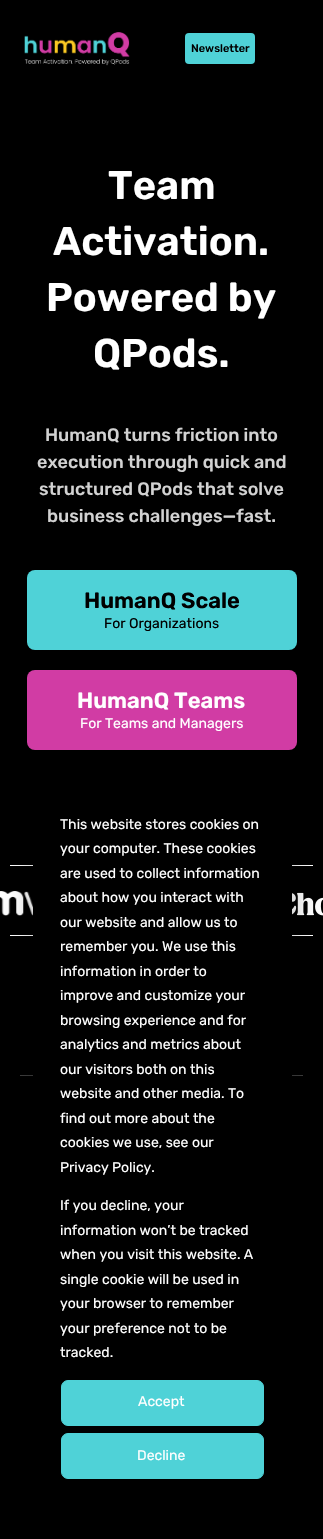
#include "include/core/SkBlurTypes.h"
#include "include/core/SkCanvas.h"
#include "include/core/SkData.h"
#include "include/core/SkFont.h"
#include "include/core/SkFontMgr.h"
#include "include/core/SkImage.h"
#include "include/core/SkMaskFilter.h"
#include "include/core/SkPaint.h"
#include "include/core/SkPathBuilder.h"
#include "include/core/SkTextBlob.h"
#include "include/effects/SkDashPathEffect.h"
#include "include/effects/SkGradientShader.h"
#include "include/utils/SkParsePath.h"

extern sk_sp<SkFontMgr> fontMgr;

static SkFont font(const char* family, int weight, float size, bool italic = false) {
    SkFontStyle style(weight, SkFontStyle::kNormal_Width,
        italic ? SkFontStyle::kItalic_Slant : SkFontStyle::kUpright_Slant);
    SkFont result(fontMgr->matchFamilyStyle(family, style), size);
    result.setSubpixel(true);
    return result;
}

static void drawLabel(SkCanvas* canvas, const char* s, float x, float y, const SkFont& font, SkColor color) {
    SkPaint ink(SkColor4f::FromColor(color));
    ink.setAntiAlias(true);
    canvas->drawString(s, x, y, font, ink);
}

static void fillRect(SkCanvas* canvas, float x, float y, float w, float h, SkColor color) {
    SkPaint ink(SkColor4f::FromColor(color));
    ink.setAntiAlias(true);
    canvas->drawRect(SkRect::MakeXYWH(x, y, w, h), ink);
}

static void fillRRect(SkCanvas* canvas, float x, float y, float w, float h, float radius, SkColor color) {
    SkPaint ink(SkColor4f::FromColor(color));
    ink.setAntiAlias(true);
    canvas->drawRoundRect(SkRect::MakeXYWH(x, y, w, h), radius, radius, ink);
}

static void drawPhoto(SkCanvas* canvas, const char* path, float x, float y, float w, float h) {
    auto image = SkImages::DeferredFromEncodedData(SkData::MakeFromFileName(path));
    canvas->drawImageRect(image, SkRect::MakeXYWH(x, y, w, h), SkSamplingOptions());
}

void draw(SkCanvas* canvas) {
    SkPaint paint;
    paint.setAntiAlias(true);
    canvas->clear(0xFF000000);
    drawPhoto(canvas, "assets/img1.png", 24, 32, 106, 34);
    fillRRect(canvas, 185, 33, 70, 31, 4, 0xFF4FD2D7);
    SkFont font1 = font("Rubik", 500, 11);
    drawLabel(canvas, "Newsletter", 191, 52, font1, 0xFF000000);
    SkFont font2 = font("Rubik", 600, 40);
    drawLabel(canvas, "Team", 108, 199, font2, 0xFFFFFFFF);
    drawLabel(canvas, "Activation.", 53, 255, font2, 0xFFFFFFFF);
    drawLabel(canvas, "Powered by", 46, 311, font2, 0xFFFFFFFF);
    drawLabel(canvas, "QPods.", 93, 367, font2, 0xFFFFFFFF);
    SkFont font3 = font("Rubik", 500, 18);
    drawLabel(canvas, "HumanQ turns friction into", 45, 441, font3, 0xFFD2D2D2);
    drawLabel(canvas, "execution through quick and", 37, 468, font3, 0xFFD2D2D2);
    drawLabel(canvas, "structured QPods that solve", 39, 495, font3, 0xFFD2D2D2);
    drawLabel(canvas, "business challenges—fast.", 47, 522, font3, 0xFFD2D2D2);
    fillRRect(canvas, 27, 570, 270, 80, 8, 0xFF4FD2D7);
    SkFont font4 = font("Rubik", 600, 22);
    drawLabel(canvas, "HumanQ Scale", 84, 608, font4, 0xFF000000);
    SkFont font5 = font("Rubik", 400, 14);
    drawLabel(canvas, "For Organizations", 104, 628, font5, 0xFF000000);
    fillRRect(canvas, 27, 670, 270, 80, 8, 0xFFD13CA4);
    drawLabel(canvas, "HumanQ Teams", 77, 708, font4, 0xFFFFFFFF);
    drawLabel(canvas, "For Teams and Managers", 80, 728, font5, 0xFFFFFFFF);
    fillRect(canvas, 10, 865, 303, 1, 0xFFFFFFFF);
    drawPhoto(canvas, "assets/img2.png", 0, 891, 33, 25);
    drawPhoto(canvas, "assets/img3.png", 292, 892, 31, 24);
    fillRect(canvas, 10, 935, 303, 1, 0xFFFFFFFF);
    fillRect(canvas, 20, 1075, 283, 1, 0xFF3E3E3E);
    paint.setColor(0x47000000);
    paint.setMaskFilter(SkMaskFilter::MakeBlur(kNormal_SkBlurStyle, 14));
    canvas->drawRoundRect(SkRect::MakeXYWH(33, 793, 259, 722), 12, 12, paint);
    paint.setMaskFilter(nullptr);
    fillRRect(canvas, 33, 785, 259, 722, 12, 0xFF000000);
    drawLabel(canvas, "This website stores cookies on", 60, 829, font5, 0xFFFFFFFF);
    drawLabel(canvas, "your computer. These cookies", 60, 853, font5, 0xFFFFFFFF);
    drawLabel(canvas, "are used to collect information", 60, 878, font5, 0xFFFFFFFF);
    drawLabel(canvas, "about how you interact with", 60, 902, font5, 0xFFFFFFFF);
    drawLabel(canvas, "our website and allow us to", 60, 927, font5, 0xFFFFFFFF);
    drawLabel(canvas, "remember you. We use this", 60, 951, font5, 0xFFFFFFFF);
    drawLabel(canvas, "information in order to", 60, 976, font5, 0xFFFFFFFF);
    drawLabel(canvas, "improve and customize your", 60, 1000, font5, 0xFFFFFFFF);
    drawLabel(canvas, "browsing experience and for", 60, 1025, font5, 0xFFFFFFFF);
    drawLabel(canvas, "analytics and metrics about", 60, 1049, font5, 0xFFFFFFFF);
    drawLabel(canvas, "our visitors both on this", 60, 1074, font5, 0xFFFFFFFF);
    drawLabel(canvas, "website and other media. To", 60, 1098, font5, 0xFFFFFFFF);
    drawLabel(canvas, "find out more about the", 60, 1123, font5, 0xFFFFFFFF);
    drawLabel(canvas, "cookies we use, see our", 60, 1147, font5, 0xFFFFFFFF);
    drawLabel(canvas, "Privacy Policy.", 60, 1172, font5, 0xFFFFFFFF);
    drawLabel(canvas, "If you decline, your", 60, 1210, font5, 0xFFFFFFFF);
    drawLabel(canvas, "information won’t be tracked", 60, 1235, font5, 0xFFFFFFFF);
    drawLabel(canvas, "when you visit this website. A", 60, 1259, font5, 0xFFFFFFFF);
    drawLabel(canvas, "single cookie will be used in", 60, 1284, font5, 0xFFFFFFFF);
    drawLabel(canvas, "your browser to remember", 60, 1308, font5, 0xFFFFFFFF);
    drawLabel(canvas, "your preference not to be", 60, 1333, font5, 0xFFFFFFFF);
    drawLabel(canvas, "tracked.", 60, 1357, font5, 0xFFFFFFFF);
    paint.setColor(0xFF4FD2D7);
    canvas->drawRoundRect(SkRect::MakeXYWH(61.5f, 1380.5f, 202, 45), 6.5f, 6.5f, paint);
    paint.setStroke(true);
    paint.setStrokeWidth(1);
    canvas->drawRoundRect(SkRect::MakeXYWH(61.5f, 1380.5f, 202, 45), 6.5f, 6.5f, paint);
    drawLabel(canvas, "Accept", 138, 1406, font5, 0xFFFFFFFF);
    paint.setStroke(false);
    canvas->drawRoundRect(SkRect::MakeXYWH(61.5f, 1433.5f, 202, 45), 6.5f, 6.5f, paint);
    paint.setStroke(true);
    canvas->drawRoundRect(SkRect::MakeXYWH(61.5f, 1433.5f, 202, 45), 6.5f, 6.5f, paint);
    drawLabel(canvas, "Decline", 137, 1460, font5, 0xFFFFFFFF);
}
